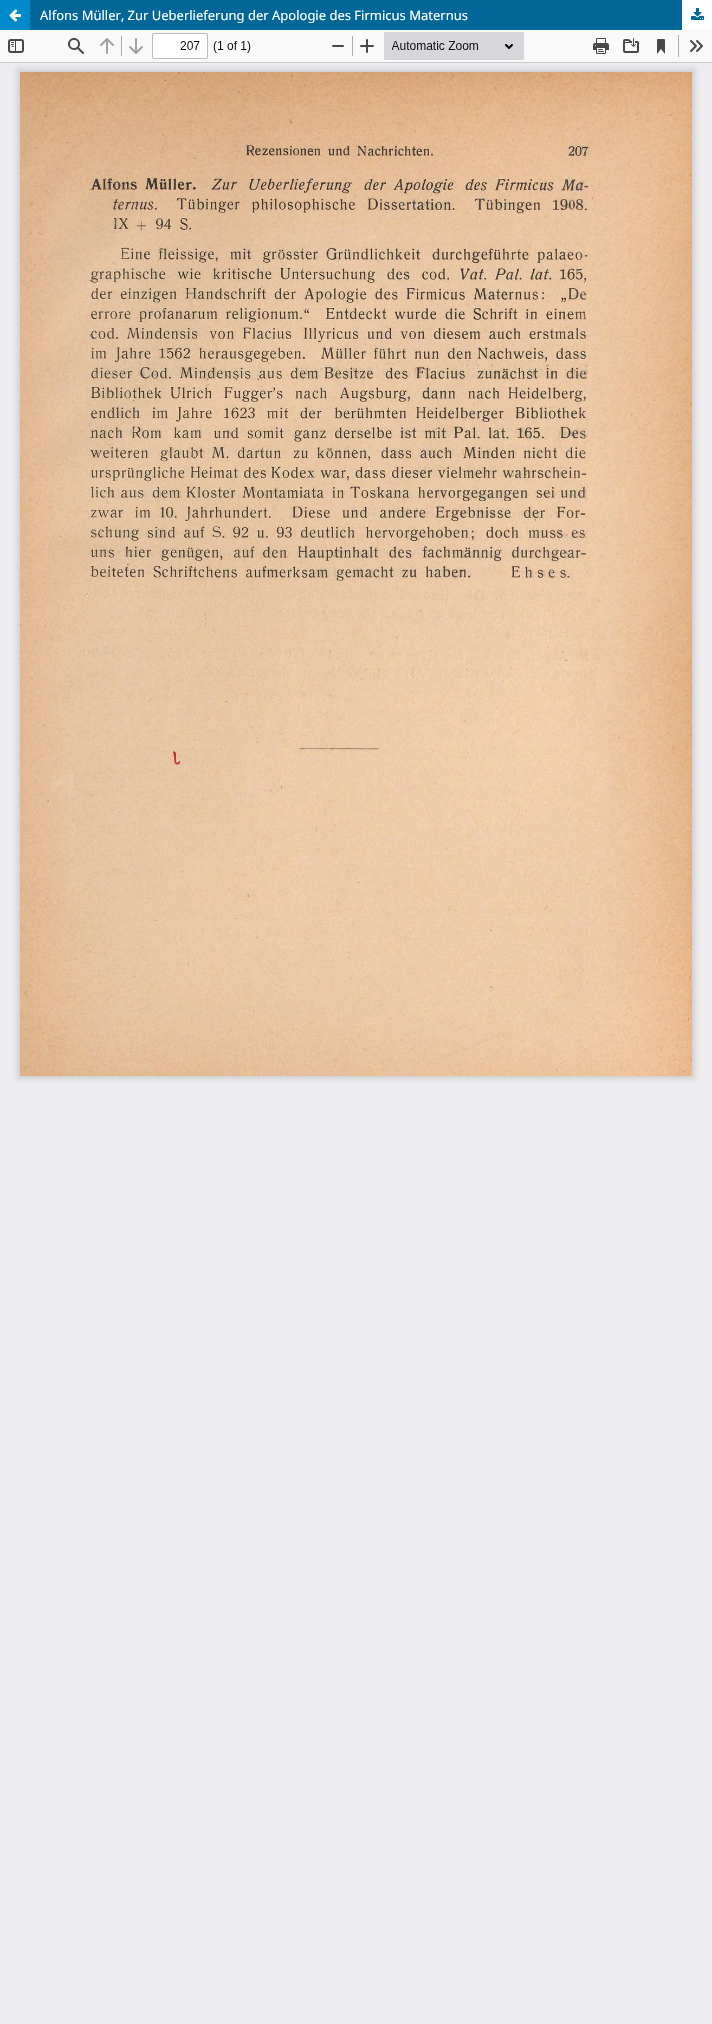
#include "include/core/SkBlurTypes.h"
#include "include/core/SkCanvas.h"
#include "include/core/SkData.h"
#include "include/core/SkFont.h"
#include "include/core/SkFontMgr.h"
#include "include/core/SkImage.h"
#include "include/core/SkMaskFilter.h"
#include "include/core/SkPaint.h"
#include "include/core/SkPathBuilder.h"
#include "include/core/SkTextBlob.h"
#include "include/effects/SkDashPathEffect.h"
#include "include/effects/SkGradientShader.h"
#include "include/utils/SkParsePath.h"

extern sk_sp<SkFontMgr> fontMgr;

static SkFont font(const char* family, int weight, float size, bool italic = false) {
    SkFontStyle style(weight, SkFontStyle::kNormal_Width,
        italic ? SkFontStyle::kItalic_Slant : SkFontStyle::kUpright_Slant);
    SkFont result(fontMgr->matchFamilyStyle(family, style), size);
    result.setSubpixel(true);
    return result;
}

static void drawLabel(SkCanvas* canvas, const char* s, float x, float y, const SkFont& font, SkColor color) {
    SkPaint ink(SkColor4f::FromColor(color));
    ink.setAntiAlias(true);
    canvas->drawString(s, x, y, font, ink);
}

static void fillRect(SkCanvas* canvas, float x, float y, float w, float h, SkColor color) {
    SkPaint ink(SkColor4f::FromColor(color));
    ink.setAntiAlias(true);
    canvas->drawRect(SkRect::MakeXYWH(x, y, w, h), ink);
}

static void drawPhoto(SkCanvas* canvas, const char* path, float x, float y, float w, float h) {
    auto image = SkImages::DeferredFromEncodedData(SkData::MakeFromFileName(path));
    canvas->drawImageRect(image, SkRect::MakeXYWH(x, y, w, h), SkSamplingOptions());
}

void draw(SkCanvas* canvas) {
    SkPaint paint;
    paint.setAntiAlias(true);
    canvas->clear(0xFFFFFFFF);
    fillRect(canvas, 30, 0, 652, 30, 0xFF006798);
    fillRect(canvas, 0, 0, 30, 30, 0xFF008ACB);
    drawPhoto(canvas, "assets/img1.png", 9, 9, 12, 13);
    SkFont font1 = font("Noto Sans", 400, 13);
    drawLabel(canvas, "Alfons Müller, Zur Ueberlieferung der Apologie des Firmicus Maternus", 40, 20, font1, 0xFFFFFFFF);
    drawPhoto(canvas, "assets/img2.png", 691, 8, 13, 12);
    drawPhoto(canvas, "assets/img3.png", 0, 30, 712, 1994);
}
